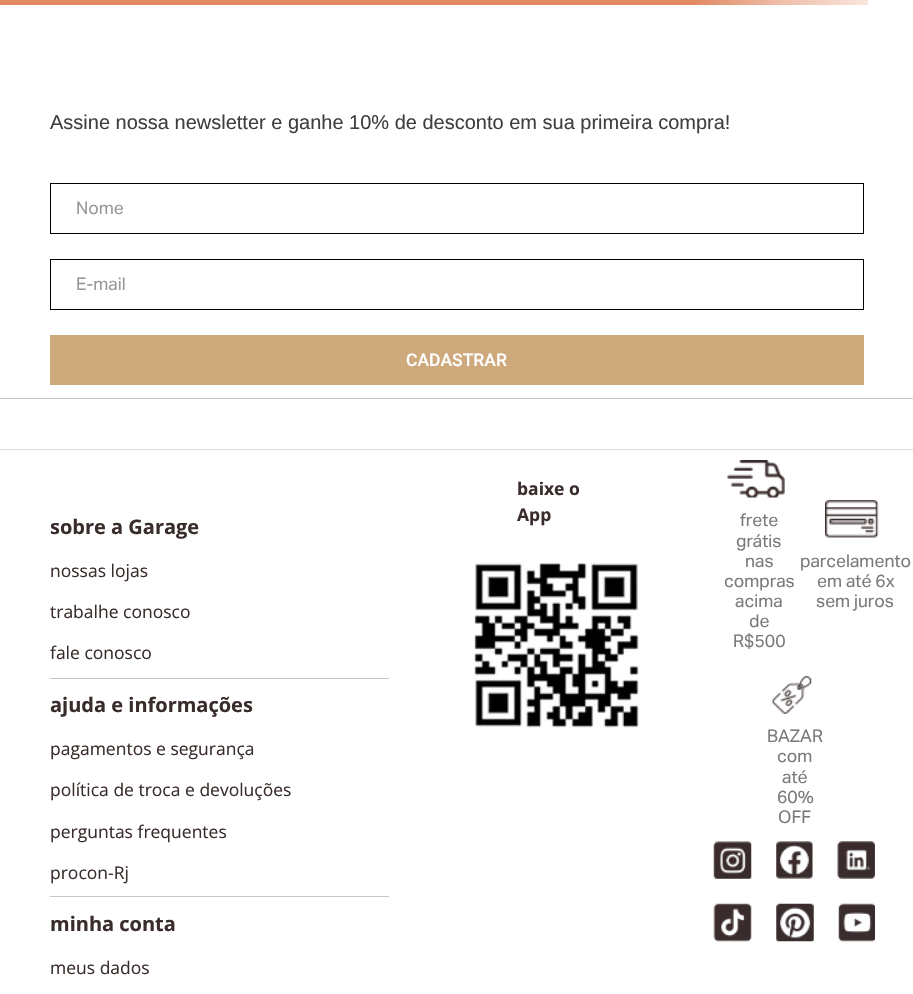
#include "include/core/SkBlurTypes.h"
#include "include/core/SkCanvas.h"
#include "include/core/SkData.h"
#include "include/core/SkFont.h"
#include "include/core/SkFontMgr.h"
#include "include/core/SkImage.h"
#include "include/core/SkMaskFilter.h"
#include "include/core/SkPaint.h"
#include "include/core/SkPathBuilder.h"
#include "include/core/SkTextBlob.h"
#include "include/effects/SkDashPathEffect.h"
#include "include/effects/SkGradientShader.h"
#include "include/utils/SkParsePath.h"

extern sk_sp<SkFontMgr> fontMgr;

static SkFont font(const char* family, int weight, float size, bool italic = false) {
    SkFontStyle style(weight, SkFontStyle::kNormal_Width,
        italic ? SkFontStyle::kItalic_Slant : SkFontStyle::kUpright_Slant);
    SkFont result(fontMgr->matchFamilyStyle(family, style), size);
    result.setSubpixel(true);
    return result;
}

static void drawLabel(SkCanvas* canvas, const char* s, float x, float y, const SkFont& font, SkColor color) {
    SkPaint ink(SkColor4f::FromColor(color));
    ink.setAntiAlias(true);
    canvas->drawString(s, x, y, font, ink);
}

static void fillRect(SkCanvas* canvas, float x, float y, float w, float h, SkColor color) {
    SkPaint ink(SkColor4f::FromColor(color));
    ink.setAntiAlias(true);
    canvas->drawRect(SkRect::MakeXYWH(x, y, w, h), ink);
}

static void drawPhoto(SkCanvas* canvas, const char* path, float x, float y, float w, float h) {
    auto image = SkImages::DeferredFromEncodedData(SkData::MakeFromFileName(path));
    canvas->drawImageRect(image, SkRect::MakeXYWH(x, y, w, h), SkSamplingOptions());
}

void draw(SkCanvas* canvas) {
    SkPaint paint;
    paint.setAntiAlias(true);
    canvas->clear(0xFFFFFFFF);
    {
        const SkColor colors[] = {0xFFE18A63, 0xFFEFBEA9, 0xFFF8E5DC};
        const float stops[] = {0.8f, 0.9f, 1};
        const SkPoint ends[] = {{0, 2.5f}, {868, 2.5f}};
        paint.setShader(SkGradientShader::MakeLinear(ends, colors, stops, 3, SkTileMode::kClamp));
        paint.setAlpha(255);
    }
    canvas->drawRect(SkRect::MakeXYWH(0, 0, 868, 5), paint);
    fillRect(canvas, 0, 398, 913, 1, 0xFFC6C6C6);
    SkFont font1 = font("Liberation Sans", 400, 20);
    drawLabel(canvas, "Assine nossa newsletter e ganhe 10% de desconto em sua primeira compra!", 50, 129, font1, 0xFF3F3F40);
    paint.setStroke(true);
    paint.setStrokeWidth(1);
    paint.setShader(nullptr);
    paint.setColor(0xFF000000);
    canvas->drawRect(SkRect::MakeXYWH(50.5f, 183.5f, 813, 50), paint);
    SkFont font2 = font("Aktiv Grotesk", 400, 17.5f);
    drawLabel(canvas, "Nome", 76, 214, font2, 0xFF979899);
    canvas->drawRect(SkRect::MakeXYWH(50.5f, 259.5f, 813, 50), paint);
    drawLabel(canvas, "E-mail", 76, 290, font2, 0xFF979899);
    fillRect(canvas, 50, 335, 814, 50, 0xFFCEA97C);
    SkFont font3 = font("Roboto", 500, 17.5f);
    drawLabel(canvas, "CADASTRAR", 406, 366, font3, 0xFFFFFFFF);
    fillRect(canvas, 0, 449, 913, 1, 0xFFDDDDDD);
    SkFont font4 = font("Open Sans", 700, 17.5f);
    drawLabel(canvas, "baixe o", 517, 495, font4, 0xFF392D2B);
    drawLabel(canvas, "App", 517, 521, font4, 0xFF392D2B);
    drawPhoto(canvas, "assets/img1.png", 474, 562, 165, 166);
    fillRect(canvas, 50, 678, 339, 1, 0xFFC6C6C6);
    SkFont font5 = font("Open Sans", 700, 20);
    drawLabel(canvas, "sobre a Garage", 50, 534, font5, 0xFF392D2B);
    SkFont font6 = font("Open Sans", 400, 17.5f);
    drawLabel(canvas, "nossas lojas", 50, 577, font6, 0xFF392D2B);
    drawLabel(canvas, "trabalhe conosco", 50, 618, font6, 0xFF392D2B);
    drawLabel(canvas, "fale conosco", 50, 659, font6, 0xFF392D2B);
    fillRect(canvas, 50, 896, 339, 1, 0xFFC6C6C6);
    drawLabel(canvas, "ajuda e informações", 50, 712, font5, 0xFF392D2B);
    drawLabel(canvas, "pagamentos e segurança", 50, 755, font6, 0xFF392D2B);
    drawLabel(canvas, "política de troca e devoluções", 50, 796, font6, 0xFF392D2B);
    drawLabel(canvas, "perguntas frequentes", 50, 838, font6, 0xFF392D2B);
    drawLabel(canvas, "procon-Rj", 50, 879, font6, 0xFF392D2B);
    drawLabel(canvas, "minha conta", 50, 931, font5, 0xFF392D2B);
    drawLabel(canvas, "meus dados", 50, 974, font6, 0xFF392D2B);
    drawPhoto(canvas, "assets/img2.png", 727, 460, 58, 38);
    drawLabel(canvas, "frete", 740, 526, font2, 0xFF7A7A7A);
    drawLabel(canvas, "grátis", 736, 547, font2, 0xFF7A7A7A);
    drawLabel(canvas, "nas", 745, 567, font2, 0xFF7A7A7A);
    drawLabel(canvas, "compras", 724, 587, font2, 0xFF7A7A7A);
    drawLabel(canvas, "acima", 735, 607, font2, 0xFF7A7A7A);
    drawLabel(canvas, "de", 749, 627, font2, 0xFF7A7A7A);
    drawLabel(canvas, "R$500", 733, 647, font2, 0xFF7A7A7A);
    drawPhoto(canvas, "assets/img3.png", 825, 500, 54, 38);
    drawLabel(canvas, "parcelamento", 800, 567, font2, 0xFF7A7A7A);
    drawLabel(canvas, "em até 6x", 817, 587, font2, 0xFF7A7A7A);
    drawLabel(canvas, "sem juros", 816, 607, font2, 0xFF7A7A7A);
    drawPhoto(canvas, "assets/img4.png", 772, 676, 40, 38);
    drawLabel(canvas, "BAZAR", 767, 742, font2, 0xFF7A7A7A);
    drawLabel(canvas, "com", 777, 762, font2, 0xFF7A7A7A);
    drawLabel(canvas, "até", 782, 783, font2, 0xFF7A7A7A);
    drawLabel(canvas, "60%", 777, 803, font2, 0xFF7A7A7A);
    drawLabel(canvas, "OFF", 778, 823, font2, 0xFF7A7A7A);
    drawPhoto(canvas, "assets/img5.png", 713, 841, 39, 38);
    drawPhoto(canvas, "assets/img6.png", 776, 841, 37, 38);
    drawPhoto(canvas, "assets/img7.png", 837, 841, 38, 38);
    drawPhoto(canvas, "assets/img8.png", 713, 903, 39, 39);
    drawPhoto(canvas, "assets/img9.png", 776, 903, 38, 39);
    drawPhoto(canvas, "assets/img10.png", 838, 903, 37, 39);
}
